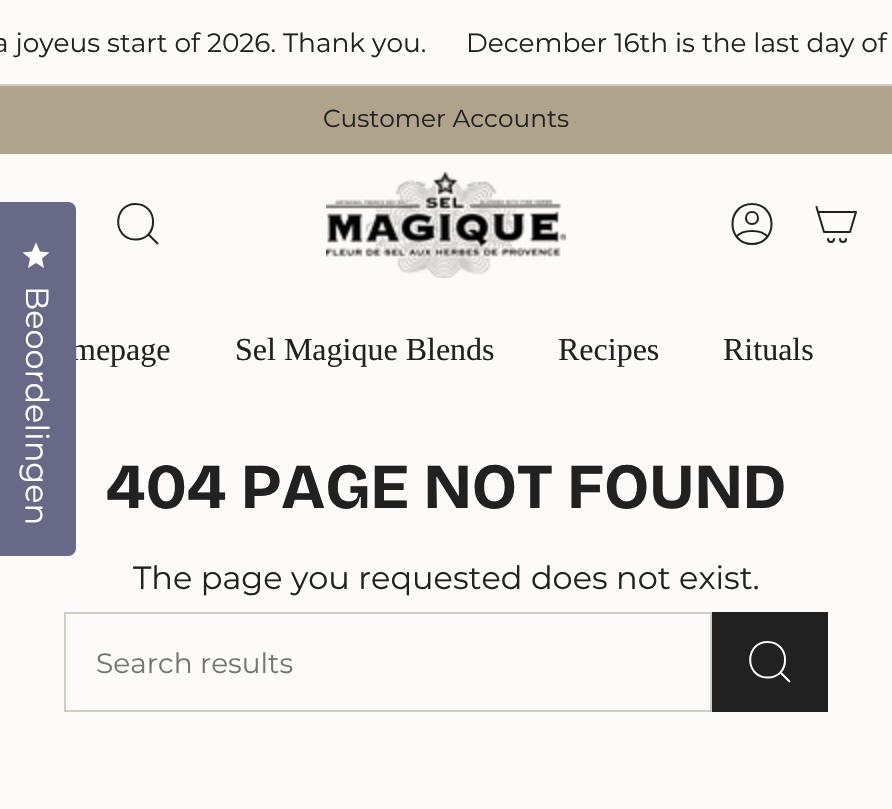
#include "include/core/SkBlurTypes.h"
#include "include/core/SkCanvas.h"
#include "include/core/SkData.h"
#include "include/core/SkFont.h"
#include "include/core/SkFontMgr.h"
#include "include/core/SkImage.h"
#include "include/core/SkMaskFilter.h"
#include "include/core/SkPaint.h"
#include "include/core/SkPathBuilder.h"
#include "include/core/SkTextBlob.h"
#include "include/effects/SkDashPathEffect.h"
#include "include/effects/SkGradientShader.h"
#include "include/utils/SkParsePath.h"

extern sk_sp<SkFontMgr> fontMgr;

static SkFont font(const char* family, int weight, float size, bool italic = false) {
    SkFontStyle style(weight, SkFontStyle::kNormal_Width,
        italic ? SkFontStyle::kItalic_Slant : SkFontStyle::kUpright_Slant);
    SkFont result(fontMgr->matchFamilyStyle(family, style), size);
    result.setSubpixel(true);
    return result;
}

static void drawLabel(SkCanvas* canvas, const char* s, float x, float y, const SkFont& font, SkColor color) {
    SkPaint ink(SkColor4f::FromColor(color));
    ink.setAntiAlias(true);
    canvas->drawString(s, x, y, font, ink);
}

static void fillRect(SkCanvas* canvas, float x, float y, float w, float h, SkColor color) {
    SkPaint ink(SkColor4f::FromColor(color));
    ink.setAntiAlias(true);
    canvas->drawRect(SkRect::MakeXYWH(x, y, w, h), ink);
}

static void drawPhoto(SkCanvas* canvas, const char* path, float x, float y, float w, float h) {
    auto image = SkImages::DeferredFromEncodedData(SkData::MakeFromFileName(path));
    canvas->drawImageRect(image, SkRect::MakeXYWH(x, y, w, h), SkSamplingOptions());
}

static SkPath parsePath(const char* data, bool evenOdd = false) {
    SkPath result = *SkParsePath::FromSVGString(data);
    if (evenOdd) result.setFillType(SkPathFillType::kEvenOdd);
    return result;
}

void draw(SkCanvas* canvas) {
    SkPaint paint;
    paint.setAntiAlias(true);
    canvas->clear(0xFFFCFBF9);
    fillRect(canvas, 0, 84, 892, 2, 0xFFD1CDC4);
    SkFont font1 = font("Montserrat", 400, 26.4f);
    drawLabel(canvas, "a joyeus start of 2026. Thank you.", -7, 52, font1, 0xFF212121);
    drawLabel(canvas, "December 16th is the last day of", 466, 52, font1, 0xFF212121);
    fillRect(canvas, 0, 86, 892, 68, 0xFFB0A38B);
    SkFont font2 = font("Montserrat", 400, 24.75f);
    drawLabel(canvas, "Customer Accounts", 323, 127, font2, 0xFF212121);
    paint.setStroke(true);
    paint.setStrokeWidth(2);
    paint.setColor(0xFF212121);
    canvas->drawPath(parsePath("M135.5 204C159 204 159 240.5 135 239.5C112 238.5 113 204 135.5 204ZM148 234L158 244"), paint);
    drawPhoto(canvas, "assets/img1.png", 326, 172, 240, 106);
    paint.setStrokeCap(SkPaint::kRound_Cap);
    paint.setStrokeJoin(SkPaint::kRound_Join);
    canvas->drawPath(parsePath("M752 204C726 204 726 244 752 244C778 244 778 204 752 204ZM736.5 236.5C742.5 229 761.5 229 767.5 236.5M752 224C760 224 760 212 752 212C744 212 744 224 752 224Z"), paint);
    canvas->drawPath(parsePath("M818 212H856L850 232H824ZM818 212L816.5 207M834 239C834 243 828 243 828 239M846 239C846 243 840 243 840 239"), paint);
    SkFont font3 = font("Liberation Serif", 400, 32);
    drawLabel(canvas, "mepage", 71, 360, font3, 0xFF212121);
    drawLabel(canvas, "Sel Magique Blends", 235, 360, font3, 0xFF212121);
    drawLabel(canvas, "Recipes", 558, 360, font3, 0xFF212121);
    drawLabel(canvas, "Rituals", 723, 360, font3, 0xFF212121);
    SkFont font4 = font("Bricolage Grotesque", 700, 64);
    drawLabel(canvas, "404 PAGE NOT FOUND", 106, 508, font4, 0xFF212121);
    SkFont font5 = font("Montserrat", 400, 32);
    drawLabel(canvas, "The page you requested does not exist.", 133, 589, font5, 0xFF212121);
    paint.setStrokeCap(SkPaint::kButt_Cap);
    paint.setStrokeJoin(SkPaint::kMiter_Join);
    paint.setColor(0xFFD1CDC4);
    canvas->drawRect(SkRect::MakeXYWH(65, 613, 646, 98), paint);
    SkFont font6 = font("Montserrat", 400, 28);
    drawLabel(canvas, "Search results", 96, 673, font6, 0xFF757575);
    fillRect(canvas, 712, 612, 116, 100, 0xFF212121);
    paint.setColor(0xFFFFFFFF);
    canvas->drawPath(parsePath("M767.5 642C791 642 791 678.5 767 677.5C744 676.5 745 642 767.5 642ZM780 672L790 682"), paint);
    paint.setStroke(false);
    paint.setColor(0xFF676986);
    canvas->drawPath(parsePath("M-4 202H68C72.5 202 76 205.5 76 210V548C76 552.5 72.5 556 68 556H-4Z"), paint);
    paint.setColor(0xFFFFFFFF);
    canvas->drawPath(parsePath("M36 263L44 268L42 258.5L49.5 252.5L40 251.5L36 242.5L32 251.5L22.5 252.5L30 258.5L28 268Z"), paint);
    canvas->save();
    canvas->rotate(90.1f, 26, 286);
    drawLabel(canvas, "Beoordelingen", 26, 286, font5, 0xFFFFFFFF);
    canvas->restore();
}
